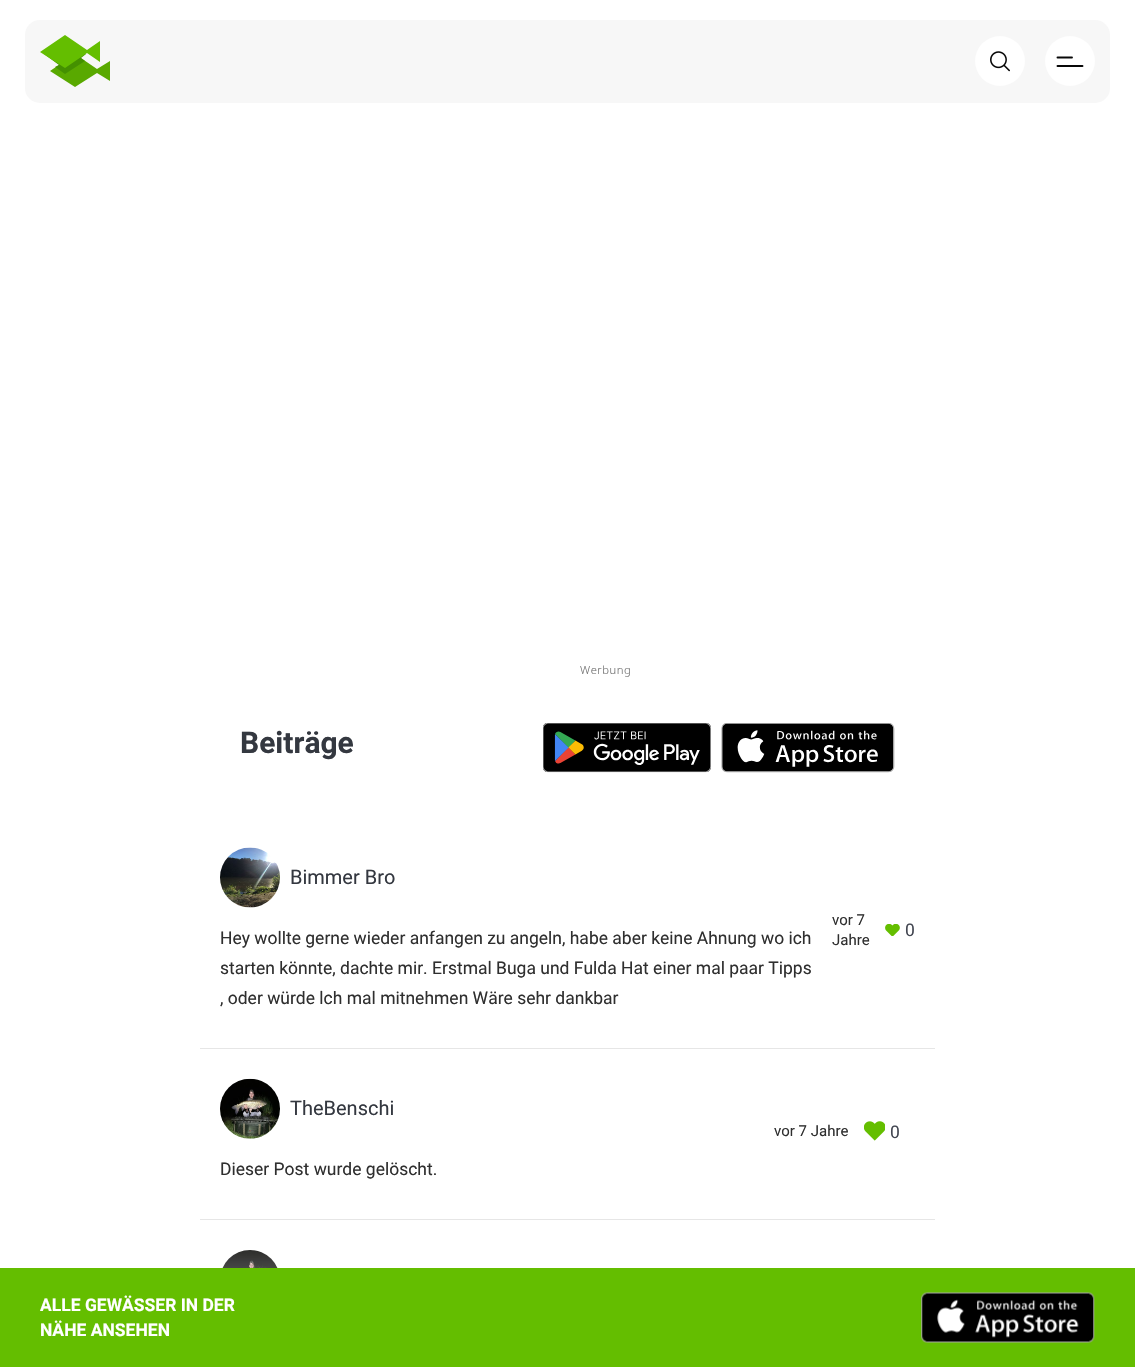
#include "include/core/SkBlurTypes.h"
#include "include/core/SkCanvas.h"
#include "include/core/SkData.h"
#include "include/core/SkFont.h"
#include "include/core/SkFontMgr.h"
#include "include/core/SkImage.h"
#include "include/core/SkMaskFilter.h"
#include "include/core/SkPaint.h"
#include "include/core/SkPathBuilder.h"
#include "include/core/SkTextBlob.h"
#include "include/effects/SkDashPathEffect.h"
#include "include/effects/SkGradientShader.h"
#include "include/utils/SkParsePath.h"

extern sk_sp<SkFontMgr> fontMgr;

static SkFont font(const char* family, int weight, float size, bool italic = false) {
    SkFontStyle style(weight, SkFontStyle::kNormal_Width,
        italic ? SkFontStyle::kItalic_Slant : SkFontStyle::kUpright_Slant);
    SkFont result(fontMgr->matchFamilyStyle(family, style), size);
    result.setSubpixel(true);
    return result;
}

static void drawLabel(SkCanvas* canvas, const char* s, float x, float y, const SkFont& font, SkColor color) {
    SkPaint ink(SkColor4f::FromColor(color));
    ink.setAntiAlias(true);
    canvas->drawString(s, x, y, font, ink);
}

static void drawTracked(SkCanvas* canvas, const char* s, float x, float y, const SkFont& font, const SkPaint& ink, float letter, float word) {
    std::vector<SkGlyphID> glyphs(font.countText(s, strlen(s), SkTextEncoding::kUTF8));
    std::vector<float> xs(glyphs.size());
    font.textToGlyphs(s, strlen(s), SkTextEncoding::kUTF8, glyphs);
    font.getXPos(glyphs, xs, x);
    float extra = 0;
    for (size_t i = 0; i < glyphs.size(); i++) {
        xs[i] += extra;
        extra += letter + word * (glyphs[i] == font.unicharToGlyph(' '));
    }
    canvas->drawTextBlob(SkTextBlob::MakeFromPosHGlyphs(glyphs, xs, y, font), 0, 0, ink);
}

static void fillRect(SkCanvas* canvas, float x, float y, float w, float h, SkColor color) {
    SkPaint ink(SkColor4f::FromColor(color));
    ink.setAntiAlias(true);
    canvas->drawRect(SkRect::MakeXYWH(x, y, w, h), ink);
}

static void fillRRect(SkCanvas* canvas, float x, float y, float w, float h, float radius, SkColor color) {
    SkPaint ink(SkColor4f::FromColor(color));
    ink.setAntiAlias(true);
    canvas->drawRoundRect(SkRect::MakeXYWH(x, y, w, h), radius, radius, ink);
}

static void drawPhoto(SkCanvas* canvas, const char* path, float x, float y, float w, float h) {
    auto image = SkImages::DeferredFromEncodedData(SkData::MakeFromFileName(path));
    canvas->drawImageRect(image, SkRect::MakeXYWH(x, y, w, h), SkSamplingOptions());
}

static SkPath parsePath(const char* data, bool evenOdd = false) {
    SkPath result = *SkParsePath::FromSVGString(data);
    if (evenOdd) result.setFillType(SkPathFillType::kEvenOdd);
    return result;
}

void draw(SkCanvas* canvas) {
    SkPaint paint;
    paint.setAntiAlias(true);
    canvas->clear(0xFFFFFFFF);
    fillRRect(canvas, 25, 20, 1085, 83, 15, 0xFFF7F7F7);
    paint.setColor(0xFF59A900);
    canvas->drawPath(parsePath("M110 61V81L97 73L75 87L50 71L75 54L97 69Z"), paint);
    paint.setColor(0xFF449100);
    canvas->drawPath(parsePath("M86 54L81 58L85 61L65 74L55 67L59 65L44 54L65 40Z"), paint);
    paint.setColor(0xFF64BE00);
    canvas->drawPath(parsePath("M100 41V62L87 53L65 68L40 52L65 35L87 50Z"), paint);
    paint.setColor(0xFFFFFFFF);
    canvas->drawCircle(1000, 61, 25, paint);
    drawPhoto(canvas, "assets/img1.png", 990, 51, 20, 21);
    canvas->drawCircle(1070, 61, 25, paint);
    paint.setStroke(true);
    paint.setStrokeWidth(1.9f);
    paint.setStrokeCap(SkPaint::kRound_Cap);
    paint.setStrokeJoin(SkPaint::kRound_Join);
    paint.setColor(0xFF080808);
    canvas->drawPath(parsePath("M1057.5 57.5H1072M1057.5 66H1082.5"), paint);
    SkFont font1 = font("Noto Sans", 300, 11.25f);
    paint.setStroke(false);
    paint.setColor(0xFF707070);
    drawTracked(canvas, "Werbung", 580, 674, font1, paint, 0.5f, 0);
    SkFont font2 = font("Roboto", 700, 30);
    drawLabel(canvas, "Beiträge", 240, 753, font2, 0xFF343840);
    drawPhoto(canvas, "assets/img2.png", 543, 723, 168, 50);
    drawPhoto(canvas, "assets/img3.png", 721, 723, 174, 50);
    drawPhoto(canvas, "assets/img4.png", 220, 847, 60, 61);
    SkFont font3 = font("Roboto", 400, 20);
    drawLabel(canvas, "Bimmer Bro", 290, 884, font3, 0xFF343840);
    SkFont font4 = font("Roboto", 400, 17.5f);
    drawLabel(canvas, "Hey wollte gerne wieder anfangen zu angeln, habe aber keine Ahnung wo ich", 220, 944, font4, 0xFF2F2F2F);
    drawLabel(canvas, "starten könnte, dachte mir. Erstmal Buga und Fulda Hat einer mal paar Tipps", 220, 974, font4, 0xFF2F2F2F);
    drawLabel(canvas, ", oder würde lch mal mitnehmen Wäre sehr dankbar", 220, 1004, font4, 0xFF2F2F2F);
    SkFont font5 = font("Roboto", 400, 15);
    drawLabel(canvas, "vor 7", 832, 925, font5, 0xFF2F2F2F);
    drawLabel(canvas, "Jahre", 832, 945, font5, 0xFF2F2F2F);
    drawPhoto(canvas, "assets/img5.png", 885, 924, 15, 12);
    drawLabel(canvas, "0", 905, 936, font4, 0xFF424651);
    fillRect(canvas, 200, 1048, 735, 1, 0xFFE6E6E6);
    drawPhoto(canvas, "assets/img6.png", 220, 1078, 60, 61);
    drawLabel(canvas, "TheBenschi", 290, 1115, font3, 0xFF343840);
    drawLabel(canvas, "Dieser Post wurde gelöscht.", 220, 1175, font4, 0xFF2F2F2F);
    drawLabel(canvas, "vor 7 Jahre", 774, 1136, font5, 0xFF2F2F2F);
    drawPhoto(canvas, "assets/img7.png", 864, 1121, 21, 20);
    drawLabel(canvas, "0", 890, 1138, font4, 0xFF424651);
    fillRect(canvas, 200, 1219, 735, 1, 0xFFE6E6E6);
    drawPhoto(canvas, "assets/img8.png", 222, 1250, 56, 18);
    {
        const SkColor colors[] = {0x00FFFFFF, 0xFFFFFFFF};
        const float stops[] = {0, 1};
        const SkPoint ends[] = {{568, 1220}, {568, 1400}};
        paint.setShader(SkGradientShader::MakeLinear(ends, colors, stops, 2, SkTileMode::kClamp));
        paint.setAlpha(255);
    }
    canvas->drawRect(SkRect::MakeXYWH(222, 1250, 56, 18), paint);
    fillRect(canvas, 0, 1268, 1135, 99, 0xFF64BE00);
    SkFont font6 = font("Roboto", 700, 17.5f);
    drawLabel(canvas, "ALLE GEWÄSSER IN DER", 40, 1311, font6, 0xFFFFFFFF);
    drawLabel(canvas, "NÄHE ANSEHEN", 40, 1336, font6, 0xFFFFFFFF);
    drawPhoto(canvas, "assets/img9.png", 921, 1292, 174, 51);
}
